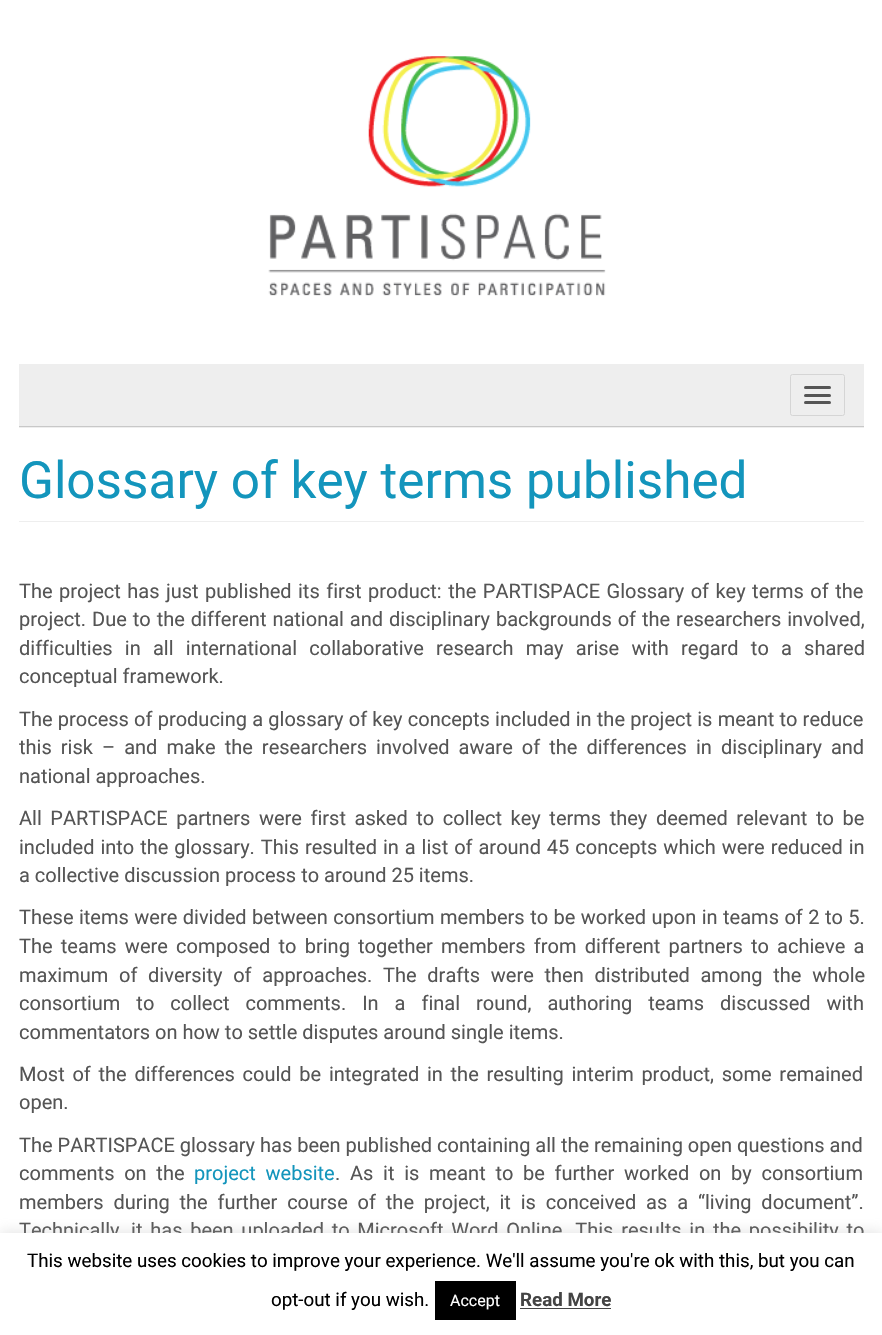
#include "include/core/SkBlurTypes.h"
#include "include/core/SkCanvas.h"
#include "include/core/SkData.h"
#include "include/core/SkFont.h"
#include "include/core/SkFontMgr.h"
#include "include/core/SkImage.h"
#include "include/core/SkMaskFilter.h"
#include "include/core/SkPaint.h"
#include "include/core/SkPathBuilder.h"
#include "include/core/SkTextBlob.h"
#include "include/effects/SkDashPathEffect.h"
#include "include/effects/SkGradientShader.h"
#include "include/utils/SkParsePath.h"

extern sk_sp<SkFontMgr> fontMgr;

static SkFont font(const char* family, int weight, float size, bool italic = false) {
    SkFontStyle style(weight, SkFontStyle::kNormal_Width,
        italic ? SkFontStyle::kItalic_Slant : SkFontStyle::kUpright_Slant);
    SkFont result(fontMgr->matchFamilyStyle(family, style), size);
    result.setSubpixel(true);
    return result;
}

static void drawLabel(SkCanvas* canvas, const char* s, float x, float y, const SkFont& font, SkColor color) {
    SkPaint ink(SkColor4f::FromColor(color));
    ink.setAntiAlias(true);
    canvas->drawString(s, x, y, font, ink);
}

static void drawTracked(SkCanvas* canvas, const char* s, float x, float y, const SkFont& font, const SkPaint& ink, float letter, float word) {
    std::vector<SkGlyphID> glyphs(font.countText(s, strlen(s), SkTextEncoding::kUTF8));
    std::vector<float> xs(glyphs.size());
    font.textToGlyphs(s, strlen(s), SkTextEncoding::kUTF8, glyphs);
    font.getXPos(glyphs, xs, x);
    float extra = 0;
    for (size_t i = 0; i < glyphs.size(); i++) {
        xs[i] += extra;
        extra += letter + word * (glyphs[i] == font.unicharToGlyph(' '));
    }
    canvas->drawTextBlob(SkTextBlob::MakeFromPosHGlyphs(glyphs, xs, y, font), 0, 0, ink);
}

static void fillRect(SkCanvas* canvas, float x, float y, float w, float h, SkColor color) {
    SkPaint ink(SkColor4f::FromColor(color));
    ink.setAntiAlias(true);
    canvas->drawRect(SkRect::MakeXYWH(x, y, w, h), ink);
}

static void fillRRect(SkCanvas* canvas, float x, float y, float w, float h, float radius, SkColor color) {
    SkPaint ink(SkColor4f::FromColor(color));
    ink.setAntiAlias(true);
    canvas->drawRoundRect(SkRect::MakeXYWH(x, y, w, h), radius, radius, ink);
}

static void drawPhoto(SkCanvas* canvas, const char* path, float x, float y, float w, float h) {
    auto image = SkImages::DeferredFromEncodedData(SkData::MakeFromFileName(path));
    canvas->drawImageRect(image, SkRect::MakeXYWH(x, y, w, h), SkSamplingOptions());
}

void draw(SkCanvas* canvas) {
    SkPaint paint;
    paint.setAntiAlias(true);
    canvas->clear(0xFFFFFFFF);
    drawPhoto(canvas, "assets/img1.png", 268, 56, 338, 240);
    fillRect(canvas, 19, 364, 845, 64, 0xFFEEEEEE);
    fillRect(canvas, 19, 426, 845, 1, 0xFFC8C8C8);
    paint.setStroke(true);
    paint.setStrokeWidth(1);
    paint.setColor(0xFFD5D5D5);
    canvas->drawRoundRect(SkRect::MakeXYWH(790.5f, 374.5f, 54, 41), 2, 2, paint);
    fillRRect(canvas, 804, 386, 27, 3, 1.5f, 0xFF555555);
    fillRRect(canvas, 804, 394, 27, 3, 1.5f, 0xFF555555);
    fillRRect(canvas, 804, 401, 27, 3, 1.5f, 0xFF555555);
    fillRect(canvas, 19, 521, 845, 1, 0xFFEEEEEE);
    SkFont font1 = font("Roboto", 400, 51.25f);
    drawLabel(canvas, "Glossary of key terms published", 19, 498, font1, 0xFF1395BC);
    SkFont font2 = font("Roboto", 400, 20);
    paint.setStroke(false);
    paint.setColor(0xFF555555);
    drawTracked(canvas, "The project has just published its first product: the PARTISPACE Glossary of key terms of the", 19, 598, font2, paint, 0, 1.5f);
    drawTracked(canvas, "project. Due to the different national and disciplinary backgrounds of the researchers involved,", 19, 626, font2, paint, 0, 1);
    drawTracked(canvas, "difficulties in all international collaborative research may arise with regard to a shared", 19, 655, font2, paint, 0, 7.25f);
    drawLabel(canvas, "conceptual framework.", 19, 683, font2, 0xFF555555);
    drawTracked(canvas, "The process of producing a glossary of key concepts included in the project is meant to reduce", 19, 726, font2, paint, 0, 0.25f);
    drawTracked(canvas, "this risk – and make the researchers involved aware of the differences in disciplinary and", 19, 754, font2, paint, 0, 4.1f);
    drawLabel(canvas, "national approaches.", 19, 783, font2, 0xFF555555);
    drawTracked(canvas, "All PARTISPACE partners were first asked to collect key terms they deemed relevant to be", 19, 825, font2, paint, 0, 3.6f);
    drawTracked(canvas, "included into the glossary. This resulted in a list of around 45 concepts which were reduced in", 19, 854, font2, paint, 0, 1);
    drawLabel(canvas, "a collective discussion process to around 25 items.", 19, 882, font2, 0xFF555555);
    drawTracked(canvas, "These items were divided between consortium members to be worked upon in teams of 2 to 5.", 19, 924, font2, paint, 0, 0.5f);
    drawTracked(canvas, "The teams were composed to bring together members from different partners to achieve a", 19, 953, font2, paint, 0, 3.25f);
    drawTracked(canvas, "maximum of diversity of approaches. The drafts were then distributed among the whole", 19, 982, font2, paint, 0, 5.75f);
    drawTracked(canvas, "consortium to collect comments. In a final round, authoring teams discussed with", 19, 1010, font2, paint, 0, 11);
    drawLabel(canvas, "commentators on how to settle disputes around single items.", 19, 1039, font2, 0xFF555555);
    drawTracked(canvas, "Most of the differences could be integrated in the resulting interim product, some remained", 19, 1081, font2, paint, 0, 2.75f);
    drawLabel(canvas, "open.", 19, 1109, font2, 0xFF555555);
    drawLabel(canvas, "The PARTISPACE glossary has been published containing all the remaining open questions and", 19, 1152, font2, 0xFF555555);
    drawTracked(canvas, "comments on the", 19, 1180, font2, paint, 0, 4.75f);
    paint.setColor(0xFF1395BC);
    drawTracked(canvas, "project website", 194, 1180, font2, paint, 0, 4.75f);
    paint.setColor(0xFF555555);
    drawTracked(canvas, ". As it is meant to be further worked on by consortium", 335, 1180, font2, paint, 0, 4.75f);
    drawTracked(canvas, "members during the further course of the project, it is conceived as a “living document”.", 19, 1209, font2, paint, 0, 4.9f);
    drawTracked(canvas, "Technically, it has been uploaded to Microsoft Word Online. This results in the possibility to", 19, 1237, font2, paint, 0, 2.75f);
    paint.setColor(0x4DACABAB);
    paint.setMaskFilter(SkMaskFilter::MakeBlur(kNormal_SkBlurStyle, 6));
    canvas->drawRect(SkRect::MakeXYWH(0, 1231, 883, 103), paint);
    paint.setMaskFilter(nullptr);
    fillRect(canvas, 0, 1233, 882, 102, 0xFFFFFFFF);
    SkFont font3 = font("Roboto", 400, 18.75f);
    drawLabel(canvas, "This website uses cookies to improve your experience. We'll assume you're ok with this, but you can", 27, 1267, font3, 0xFF000000);
    drawLabel(canvas, "opt-out if you wish.", 271, 1306, font3, 0xFF000000);
    fillRect(canvas, 435, 1281, 81, 39, 0xFF000000);
    SkFont font4 = font("Roboto", 400, 16);
    drawLabel(canvas, "Accept", 450, 1306, font4, 0xFFFFFFFF);
    SkFont font5 = font("Roboto", 700, 18.75f);
    drawLabel(canvas, "Read More", 520, 1306, font5, 0xFF444444);
    fillRect(canvas, 520, 1308, 91, 1, 0xFF444444);
}
